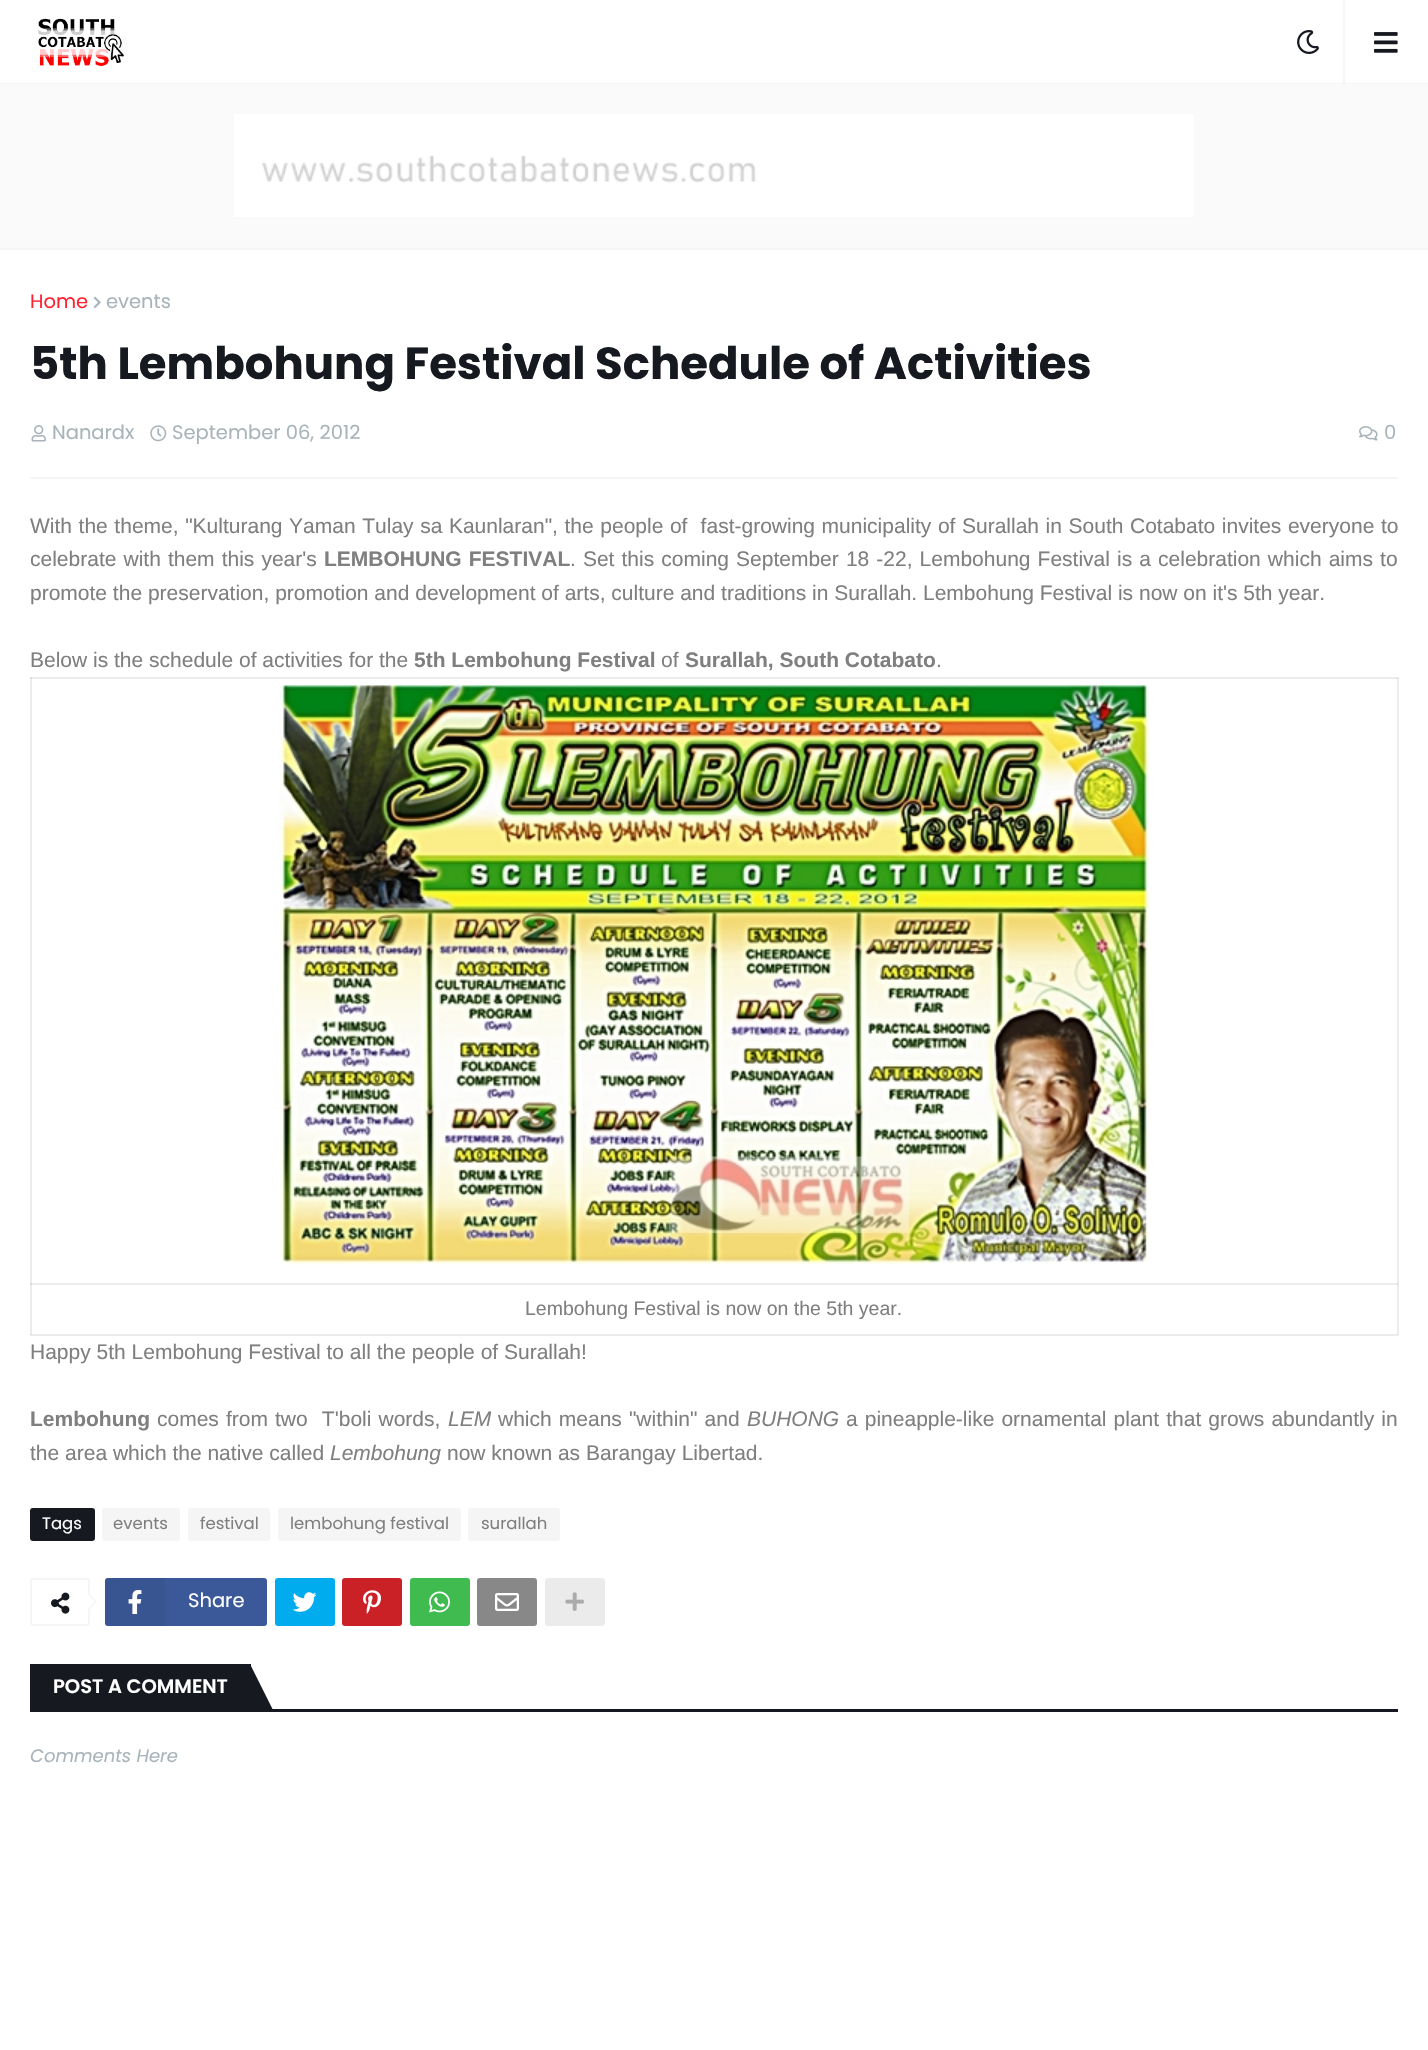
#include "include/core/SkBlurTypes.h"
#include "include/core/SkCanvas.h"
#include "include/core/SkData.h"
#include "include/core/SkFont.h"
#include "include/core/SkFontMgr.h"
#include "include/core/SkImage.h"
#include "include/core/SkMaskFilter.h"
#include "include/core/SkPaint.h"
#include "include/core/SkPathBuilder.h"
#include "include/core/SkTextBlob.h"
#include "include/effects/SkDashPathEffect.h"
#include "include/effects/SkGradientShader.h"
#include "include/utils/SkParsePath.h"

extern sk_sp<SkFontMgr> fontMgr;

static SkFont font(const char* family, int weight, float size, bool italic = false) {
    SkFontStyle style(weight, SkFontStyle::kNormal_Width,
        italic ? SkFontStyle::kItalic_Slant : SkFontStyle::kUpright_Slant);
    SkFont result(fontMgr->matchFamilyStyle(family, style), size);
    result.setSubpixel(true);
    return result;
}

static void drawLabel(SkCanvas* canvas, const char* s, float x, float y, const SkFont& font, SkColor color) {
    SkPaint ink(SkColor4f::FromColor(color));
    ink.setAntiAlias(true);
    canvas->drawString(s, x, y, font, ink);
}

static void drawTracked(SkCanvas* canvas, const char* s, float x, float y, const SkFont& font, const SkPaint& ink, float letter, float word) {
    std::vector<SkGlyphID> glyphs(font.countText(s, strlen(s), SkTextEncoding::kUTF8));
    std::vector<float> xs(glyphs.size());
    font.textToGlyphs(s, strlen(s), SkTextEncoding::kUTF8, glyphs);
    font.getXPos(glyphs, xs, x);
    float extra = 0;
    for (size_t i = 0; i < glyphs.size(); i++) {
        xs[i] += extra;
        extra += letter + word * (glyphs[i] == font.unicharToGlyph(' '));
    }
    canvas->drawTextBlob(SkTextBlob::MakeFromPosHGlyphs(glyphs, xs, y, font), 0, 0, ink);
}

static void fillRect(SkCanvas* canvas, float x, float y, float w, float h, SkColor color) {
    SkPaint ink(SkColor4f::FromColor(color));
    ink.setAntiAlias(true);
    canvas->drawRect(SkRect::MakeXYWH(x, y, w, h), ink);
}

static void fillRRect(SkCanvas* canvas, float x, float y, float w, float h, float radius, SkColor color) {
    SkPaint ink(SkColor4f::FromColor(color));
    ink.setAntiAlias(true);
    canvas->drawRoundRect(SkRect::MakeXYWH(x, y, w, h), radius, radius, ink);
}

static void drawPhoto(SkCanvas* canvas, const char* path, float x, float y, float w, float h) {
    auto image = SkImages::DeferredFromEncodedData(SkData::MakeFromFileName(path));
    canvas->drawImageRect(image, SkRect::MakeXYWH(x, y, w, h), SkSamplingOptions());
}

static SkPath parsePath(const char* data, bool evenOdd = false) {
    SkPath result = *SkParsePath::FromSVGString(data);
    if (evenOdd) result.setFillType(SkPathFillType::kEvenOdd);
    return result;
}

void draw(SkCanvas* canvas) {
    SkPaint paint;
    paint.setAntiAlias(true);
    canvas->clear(0xFFFFFFFF);
    fillRect(canvas, 30, 1283, 1368, 2, 0xFFECECEC);
    fillRect(canvas, 30, 677, 2, 658, 0xFFECECEC);
    fillRect(canvas, 30, 1284, 2, 1, 0xFFDDDDDD);
    fillRect(canvas, 30, 1283, 2, 1, 0xFFD6D6D6);
    fillRect(canvas, 30, 1334, 1368, 2, 0xFFECECEC);
    fillRect(canvas, 30, 1334, 2, 1, 0xFFDDDDDD);
    fillRect(canvas, 1397, 677, 2, 658, 0xFFECECEC);
    fillRect(canvas, 1397, 1283, 2, 1, 0xFFE4E4E4);
    fillRect(canvas, 1397, 1283, 1, 2, 0xFFDDDDDD);
    fillRect(canvas, 1397, 1283, 1, 1, 0xFFD6D6D6);
    fillRect(canvas, 1397, 1334, 1, 1, 0xFFDDDDDD);
    fillRect(canvas, 1343, 0, 2, 84, 0xFFF5F5F5);
    fillRect(canvas, 0, 83, 1428, 1, 0xFFF5F5F5);
    fillRect(canvas, 1343, 83, 2, 1, 0xFFECECEC);
    drawPhoto(canvas, "assets/img1.png", 38, 18, 90, 48);
    drawPhoto(canvas, "assets/img2.png", 1297, 30, 22, 24);
    drawPhoto(canvas, "assets/img3.png", 1374, 32, 24, 21);
    fillRect(canvas, 0, 248, 1428, 2, 0xFFF5F5F5);
    fillRect(canvas, 0, 84, 1428, 164, 0xFFFAFAFA);
    drawPhoto(canvas, "assets/img4.png", 234, 114, 960, 103);
    fillRect(canvas, 30, 477, 1368, 2, 0xFFF5F5F5);
    SkFont font1 = font("Poppins", 400, 19.5f);
    drawLabel(canvas, "Home", 30, 308, font1, 0xFFFF2232);
    drawPhoto(canvas, "assets/img5.png", 93, 296, 8, 13);
    drawLabel(canvas, "events", 106, 308, font1, 0xFFA9B4BA);
    SkFont font2 = font("Poppins", 700, 45);
    drawLabel(canvas, "5th Lembohung Festival Schedule of Activities", 30, 379, font2, 0xFF171921);
    drawPhoto(canvas, "assets/img6.png", 31, 425, 15, 17);
    drawLabel(canvas, "Nanardx", 52, 439, font1, 0xFFA9B4BA);
    drawPhoto(canvas, "assets/img7.png", 150, 425, 17, 17);
    drawLabel(canvas, "September 06, 2012", 172, 439, font1, 0xFFA9B4BA);
    drawPhoto(canvas, "assets/img8.png", 1359, 426, 19, 15);
    drawLabel(canvas, "0", 1384, 439, font1, 0xFFA9B4BA);
    SkFont font3 = font("Liberation Sans", 400, 21);
    paint.setColor(0xFF7F7F7F);
    drawTracked(canvas, "With the theme, \"Kulturang Yaman Tulay sa Kaunlaran\", the people of  fast-growing municipality of Surallah in South Cotabato invites everyone to", 30, 533, font3, paint, 0, 0.75f);
    drawTracked(canvas, "celebrate with them this year's", 30, 566, font3, paint, 0, 1.25f);
    SkFont font4 = font("Liberation Sans", 700, 21);
    drawTracked(canvas, "LEMBOHUNG FESTIVAL", 324, 566, font4, paint, 0, 1.25f);
    drawTracked(canvas, ". Set this coming September 18 -22, Lembohung Festival is a celebration which aims to", 570, 566, font3, paint, 0, 1.25f);
    drawLabel(canvas, "promote the preservation, promotion and development of arts, culture and traditions in Surallah. Lembohung Festival is now on it's 5th year.", 30, 600, font3, 0xFF7F7F7F);
    drawLabel(canvas, "Below is the schedule of activities for the", 30, 667, font3, 0xFF7F7F7F);
    drawLabel(canvas, "5th Lembohung Festival", 414, 667, font4, 0xFF7F7F7F);
    drawLabel(canvas, "of", 661, 667, font3, 0xFF7F7F7F);
    drawLabel(canvas, "Surallah, South Cotabato", 685, 667, font4, 0xFF7F7F7F);
    drawLabel(canvas, ".", 936, 667, font3, 0xFF7F7F7F);
    fillRect(canvas, 30, 677, 1368, 2, 0xFFECECEC);
    fillRect(canvas, 30, 677, 2, 2, 0xFFDDDDDD);
    fillRect(canvas, 1397, 677, 1, 2, 0xFFDDDDDD);
    drawPhoto(canvas, "assets/img9.png", 279, 685, 870, 580);
    SkFont font5 = font("Liberation Sans", 400, 19.5f);
    drawLabel(canvas, "Lembohung Festival is now on the 5th year.", 525, 1315, font5, 0xFF7F7F7F);
    drawLabel(canvas, "Happy 5th Lembohung Festival to all the people of Surallah!", 30, 1359, font3, 0xFF7F7F7F);
    drawLabel(canvas, "Lembohung", 30, 1426, font4, 0xFF7F7F7F);
    drawTracked(canvas, "comes from two  T'boli words,", 157, 1426, font3, paint, 0, 1.25f);
    SkFont font6 = font("Liberation Sans", 400, 21, true);
    drawLabel(canvas, "LEM", 448, 1426, font6, 0xFF7F7F7F);
    drawTracked(canvas, "which means \"within\" and", 498, 1426, font3, paint, 0, 1.25f);
    drawLabel(canvas, "BUHONG", 747, 1426, font6, 0xFF7F7F7F);
    drawTracked(canvas, "a pineapple-like ornamental plant that grows abundantly in", 846, 1426, font3, paint, 0, 1.25f);
    drawLabel(canvas, "the area which the native called", 30, 1460, font3, 0xFF7F7F7F);
    drawLabel(canvas, "Lembohung", 330, 1460, font6, 0xFF7F7F7F);
    drawLabel(canvas, "now known as Barangay Libertad.", 447, 1460, font3, 0xFF7F7F7F);
    fillRRect(canvas, 30, 1508, 65, 33, 3, 0xFF171921);
    SkFont font7 = font("Poppins", 400, 16.5f);
    drawLabel(canvas, "Tags", 42, 1529, font7, 0xFFFFFFFF);
    fillRRect(canvas, 102, 1508, 78, 33, 3, 0xFFF5F5F5);
    drawLabel(canvas, "events", 113, 1529, font7, 0xFF7F7F7F);
    fillRRect(canvas, 188, 1508, 82, 33, 3, 0xFFF5F5F5);
    drawLabel(canvas, "festival", 200, 1529, font7, 0xFF7F7F7F);
    fillRRect(canvas, 278, 1508, 183, 33, 3, 0xFFF5F5F5);
    drawLabel(canvas, "lembohung festival", 290, 1529, font7, 0xFF7F7F7F);
    fillRRect(canvas, 468, 1508, 92, 33, 3, 0xFFF5F5F5);
    drawLabel(canvas, "surallah", 481, 1529, font7, 0xFF7F7F7F);
    paint.setStroke(true);
    paint.setStrokeWidth(2);
    paint.setColor(0xFFF5F5F5);
    canvas->drawRoundRect(SkRect::MakeXYWH(31, 1579, 58, 46), 2, 2, paint);
    drawPhoto(canvas, "assets/img10.png", 51, 1592, 19, 22);
    paint.setStroke(false);
    paint.setColor(0xFFFFFFFF);
    canvas->drawPath(parsePath("M88.5 1593L97 1601.5L88.5 1610L80 1601.5Z"), paint);
    paint.setColor(0xFFF5F5F5);
    canvas->drawPath(parsePath("M88.5 1593L97 1601.5H95L88.5 1595Z"), paint);
    paint.setColor(0x1A9B9B9B);
    canvas->drawPath(parsePath("M97 1601.5L88.5 1610V1608L95 1601.5Z"), paint);
    fillRRect(canvas, 105, 1578, 162, 48, 3, 0xFF3B5999);
    fillRect(canvas, 105, 1578, 60, 48, 0x0D000000);
    drawPhoto(canvas, "assets/img11.png", 128, 1590, 14, 24);
    drawLabel(canvas, "Share", 188, 1607, font1, 0xFFFFFFFF);
    fillRRect(canvas, 275, 1578, 60, 48, 3, 0xFF00ACEE);
    drawPhoto(canvas, "assets/img12.png", 292, 1592, 25, 20);
    fillRRect(canvas, 342, 1578, 60, 48, 3, 0xFFCA2127);
    drawPhoto(canvas, "assets/img13.png", 363, 1590, 18, 24);
    fillRRect(canvas, 410, 1578, 60, 48, 3, 0xFF3FBB50);
    drawPhoto(canvas, "assets/img14.png", 429, 1591, 21, 22);
    fillRRect(canvas, 477, 1578, 60, 48, 3, 0xFF888888);
    drawPhoto(canvas, "assets/img15.png", 495, 1593, 24, 18);
    fillRRect(canvas, 545, 1578, 60, 48, 3, 0xFFEBEBEB);
    drawPhoto(canvas, "assets/img16.png", 565, 1592, 19, 19);
    fillRect(canvas, 272, 1709, 1126, 3, 0xFF171921);
    fillRect(canvas, 30, 1664, 221, 48, 0xFF171921);
    SkFont font8 = font("Poppins", 600, 19.5f);
    drawLabel(canvas, "POST A COMMENT", 53, 1693, font8, 0xFFFFFFFF);
    paint.setColor(0xFF171921);
    canvas->drawPath(parsePath("M250 1712V1664L274 1712Z"), paint);
    SkFont font9 = font("Poppins", 400, 18, true);
    drawLabel(canvas, "Comments Here", 30, 1762, font9, 0xFFA9B4BA);
}
